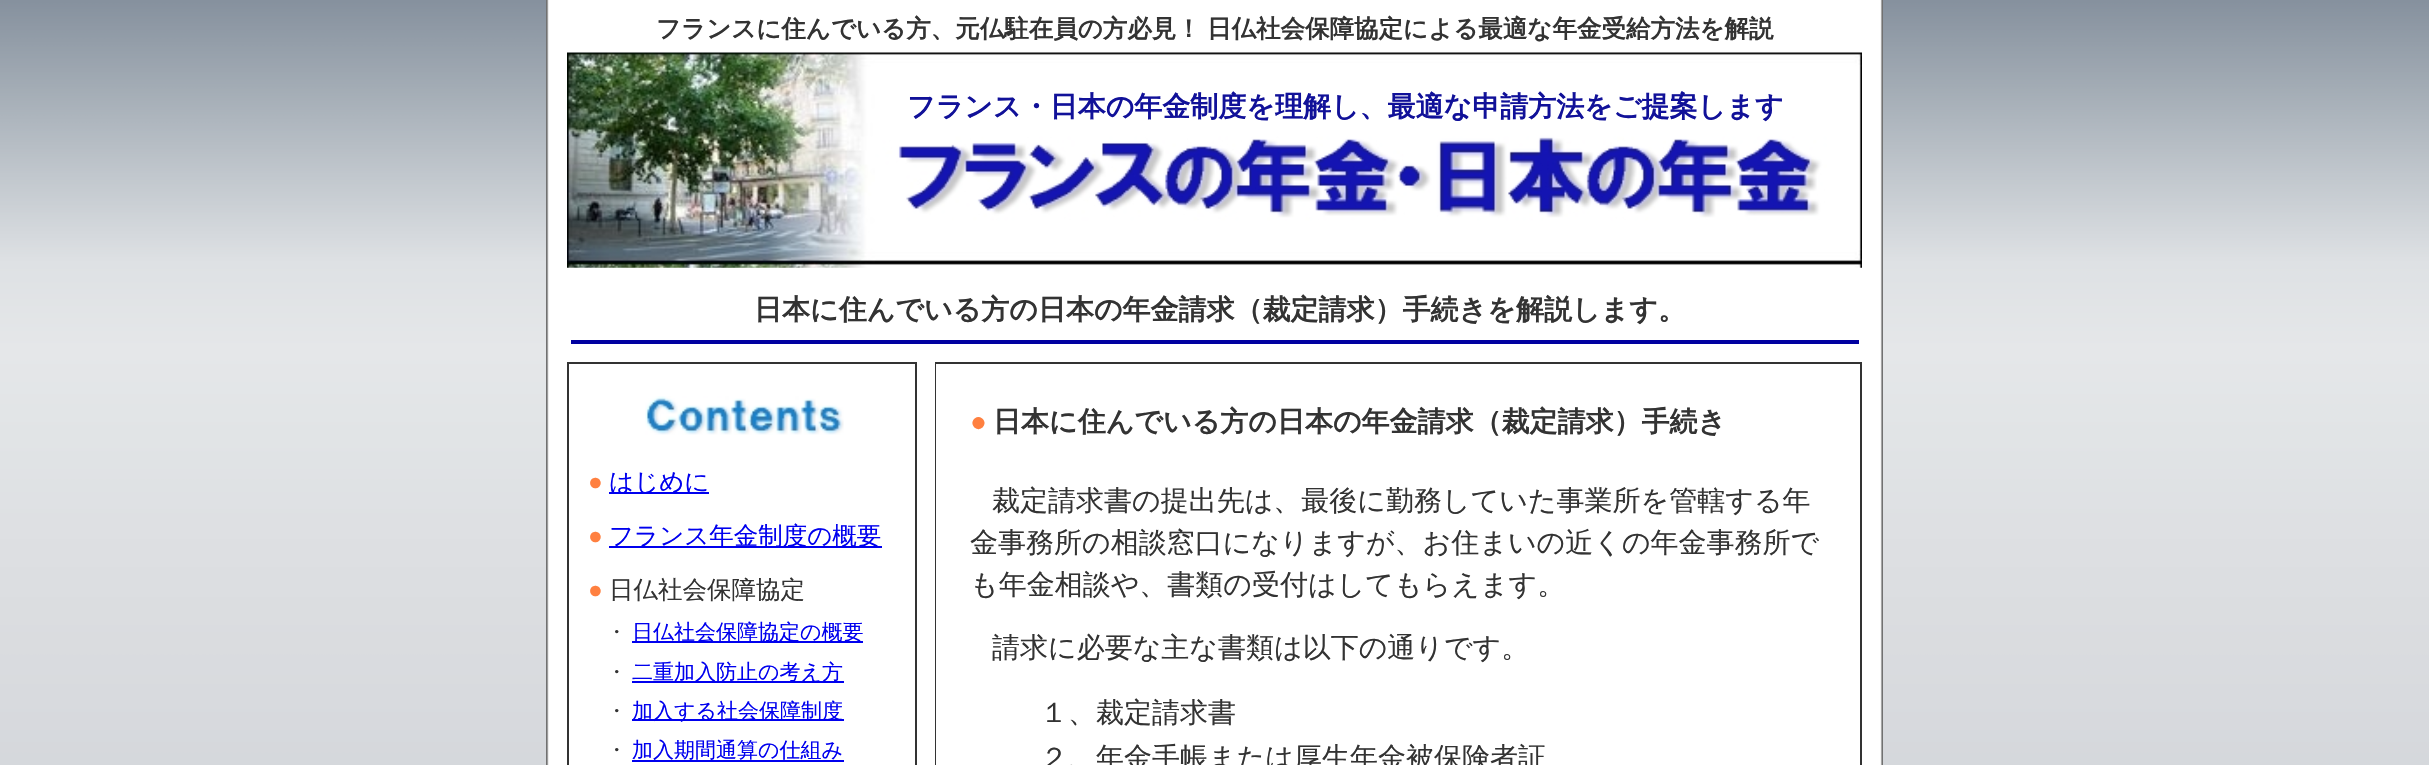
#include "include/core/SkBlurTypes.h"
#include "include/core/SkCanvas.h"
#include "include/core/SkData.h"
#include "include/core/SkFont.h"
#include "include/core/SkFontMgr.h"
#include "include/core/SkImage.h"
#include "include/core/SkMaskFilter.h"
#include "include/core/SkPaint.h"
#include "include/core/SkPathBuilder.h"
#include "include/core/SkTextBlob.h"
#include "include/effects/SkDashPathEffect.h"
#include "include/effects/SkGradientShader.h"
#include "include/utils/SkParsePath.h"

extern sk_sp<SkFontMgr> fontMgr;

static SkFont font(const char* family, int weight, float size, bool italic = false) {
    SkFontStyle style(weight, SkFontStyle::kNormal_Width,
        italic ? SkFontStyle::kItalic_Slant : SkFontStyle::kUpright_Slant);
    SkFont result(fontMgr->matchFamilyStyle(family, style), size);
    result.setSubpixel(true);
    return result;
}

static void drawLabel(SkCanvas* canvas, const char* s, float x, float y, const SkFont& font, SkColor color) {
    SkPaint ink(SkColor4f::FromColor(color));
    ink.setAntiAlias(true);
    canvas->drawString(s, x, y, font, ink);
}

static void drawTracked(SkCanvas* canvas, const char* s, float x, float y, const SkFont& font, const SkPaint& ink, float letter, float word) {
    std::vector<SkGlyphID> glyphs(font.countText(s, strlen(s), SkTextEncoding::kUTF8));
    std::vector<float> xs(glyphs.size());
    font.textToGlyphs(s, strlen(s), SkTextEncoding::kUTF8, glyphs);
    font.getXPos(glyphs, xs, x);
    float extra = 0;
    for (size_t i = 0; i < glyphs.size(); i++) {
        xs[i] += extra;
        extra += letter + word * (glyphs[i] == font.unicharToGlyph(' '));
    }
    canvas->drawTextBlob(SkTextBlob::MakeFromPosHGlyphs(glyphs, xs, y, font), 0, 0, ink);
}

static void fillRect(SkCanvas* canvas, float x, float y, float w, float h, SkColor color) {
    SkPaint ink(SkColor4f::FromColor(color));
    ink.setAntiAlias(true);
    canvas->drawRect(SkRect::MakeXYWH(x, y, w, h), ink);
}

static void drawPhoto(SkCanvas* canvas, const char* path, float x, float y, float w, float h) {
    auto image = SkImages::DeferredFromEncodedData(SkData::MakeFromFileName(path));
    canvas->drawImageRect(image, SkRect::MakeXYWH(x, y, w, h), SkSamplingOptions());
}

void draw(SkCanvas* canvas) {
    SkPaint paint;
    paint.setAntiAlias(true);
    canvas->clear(0xFFFFFFFF);
    drawPhoto(canvas, "assets/img1.png", 0, 0, 2429, 765);
    drawPhoto(canvas, "assets/img2.png", 546, 0, 1337, 765);
    SkFont font1 = font("WenQuanYi Zen Hei", 700, 24.5f);
    paint.setColor(0xFF333333);
    drawTracked(canvas, "フランスに住んでいる方、元仏駐在員の方必見！ 日仏社会保障協定による最適な年金受給方法を解説", 656, 37, font1, paint, 0, -1);
    drawPhoto(canvas, "assets/img3.png", 567, 52, 1295, 216);
    SkFont font2 = font("WenQuanYi Zen Hei", 700, 28);
    drawLabel(canvas, "フランス・日本の年金制度を理解し、最適な申請方法をご提案します", 907, 116, font2, 0xFF111199);
    drawLabel(canvas, "日本に住んでいる方の日本の年金請求（裁定請求）手続きを解説します。", 754, 319, font2, 0xFF333333);
    fillRect(canvas, 571, 340, 1288, 4, 0xFF0000A0);
    fillRect(canvas, 567, 362, 350, 403, 0xFF333333);
    fillRect(canvas, 569, 364, 346, 401, 0xFFFFFFFF);
    drawPhoto(canvas, "assets/img4.png", 645, 396, 199, 39);
    SkFont font3 = font("Liberation Serif", 400, 24.5f);
    drawLabel(canvas, "●", 588, 490, font3, 0xFFFF8040);
    fillRect(canvas, 609, 492, 100, 2, 0xFF0000EE);
    SkFont font4 = font("WenQuanYi Zen Hei", 500, 24.5f);
    drawLabel(canvas, "はじめに", 609, 490, font4, 0xFF0000EE);
    drawLabel(canvas, "●", 588, 544, font3, 0xFFFF8040);
    fillRect(canvas, 609, 546, 273, 2, 0xFF0000EE);
    drawLabel(canvas, "フランス年金制度の概要", 609, 544, font4, 0xFF0000EE);
    drawLabel(canvas, "●", 588, 598, font3, 0xFFFF8040);
    drawLabel(canvas, "日仏社会保障協定", 609, 598, font4, 0xFF333333);
    SkFont font5 = font("WenQuanYi Zen Hei", 500, 21);
    drawLabel(canvas, "・", 606, 639, font5, 0xFF333333);
    fillRect(canvas, 632, 641, 231, 2, 0xFF0000EE);
    drawLabel(canvas, "日仏社会保障協定の概要", 632, 639, font5, 0xFF0000EE);
    drawLabel(canvas, "・", 606, 679, font5, 0xFF333333);
    fillRect(canvas, 632, 681, 212, 2, 0xFF0000EE);
    drawLabel(canvas, "二重加入防止の考え方", 632, 679, font5, 0xFF0000EE);
    drawLabel(canvas, "・", 606, 718, font5, 0xFF333333);
    fillRect(canvas, 632, 719, 212, 2, 0xFF0000EE);
    drawLabel(canvas, "加入する社会保障制度", 632, 718, font5, 0xFF0000EE);
    drawLabel(canvas, "・", 606, 757, font5, 0xFF333333);
    fillRect(canvas, 632, 760, 212, 2, 0xFF0000EE);
    drawLabel(canvas, "加入期間通算の仕組み", 632, 757, font5, 0xFF0000EE);
    fillRect(canvas, 935, 362, 927, 403, 0xFF333333);
    fillRect(canvas, 936, 364, 924, 401, 0xFFFFFFFF);
    SkFont font6 = font("Liberation Serif", 700, 28);
    drawLabel(canvas, "●", 970, 431, font6, 0xFFFF8040);
    drawLabel(canvas, "日本に住んでいる方の日本の年金請求（裁定請求）手続き", 993, 431, font2, 0xFF333333);
    SkFont font7 = font("WenQuanYi Zen Hei", 500, 28);
    drawLabel(canvas, "裁定請求書の提出先は、最後に勤務していた事業所を管轄する年", 992, 510, font7, 0xFF333333);
    drawLabel(canvas, "金事務所の相談窓口になりますが、お住まいの近くの年金事務所で", 970, 552, font7, 0xFF333333);
    drawLabel(canvas, "も年金相談や、書類の受付はしてもらえます。", 970, 594, font7, 0xFF333333);
    drawLabel(canvas, "請求に必要な主な書類は以下の通りです。", 992, 657, font7, 0xFF333333);
    drawLabel(canvas, "１、裁定請求書", 1040, 722, font7, 0xFF333333);
    drawLabel(canvas, "２、年金手帳または厚生年金被保険者証", 1040, 767, font7, 0xFF333333);
}
